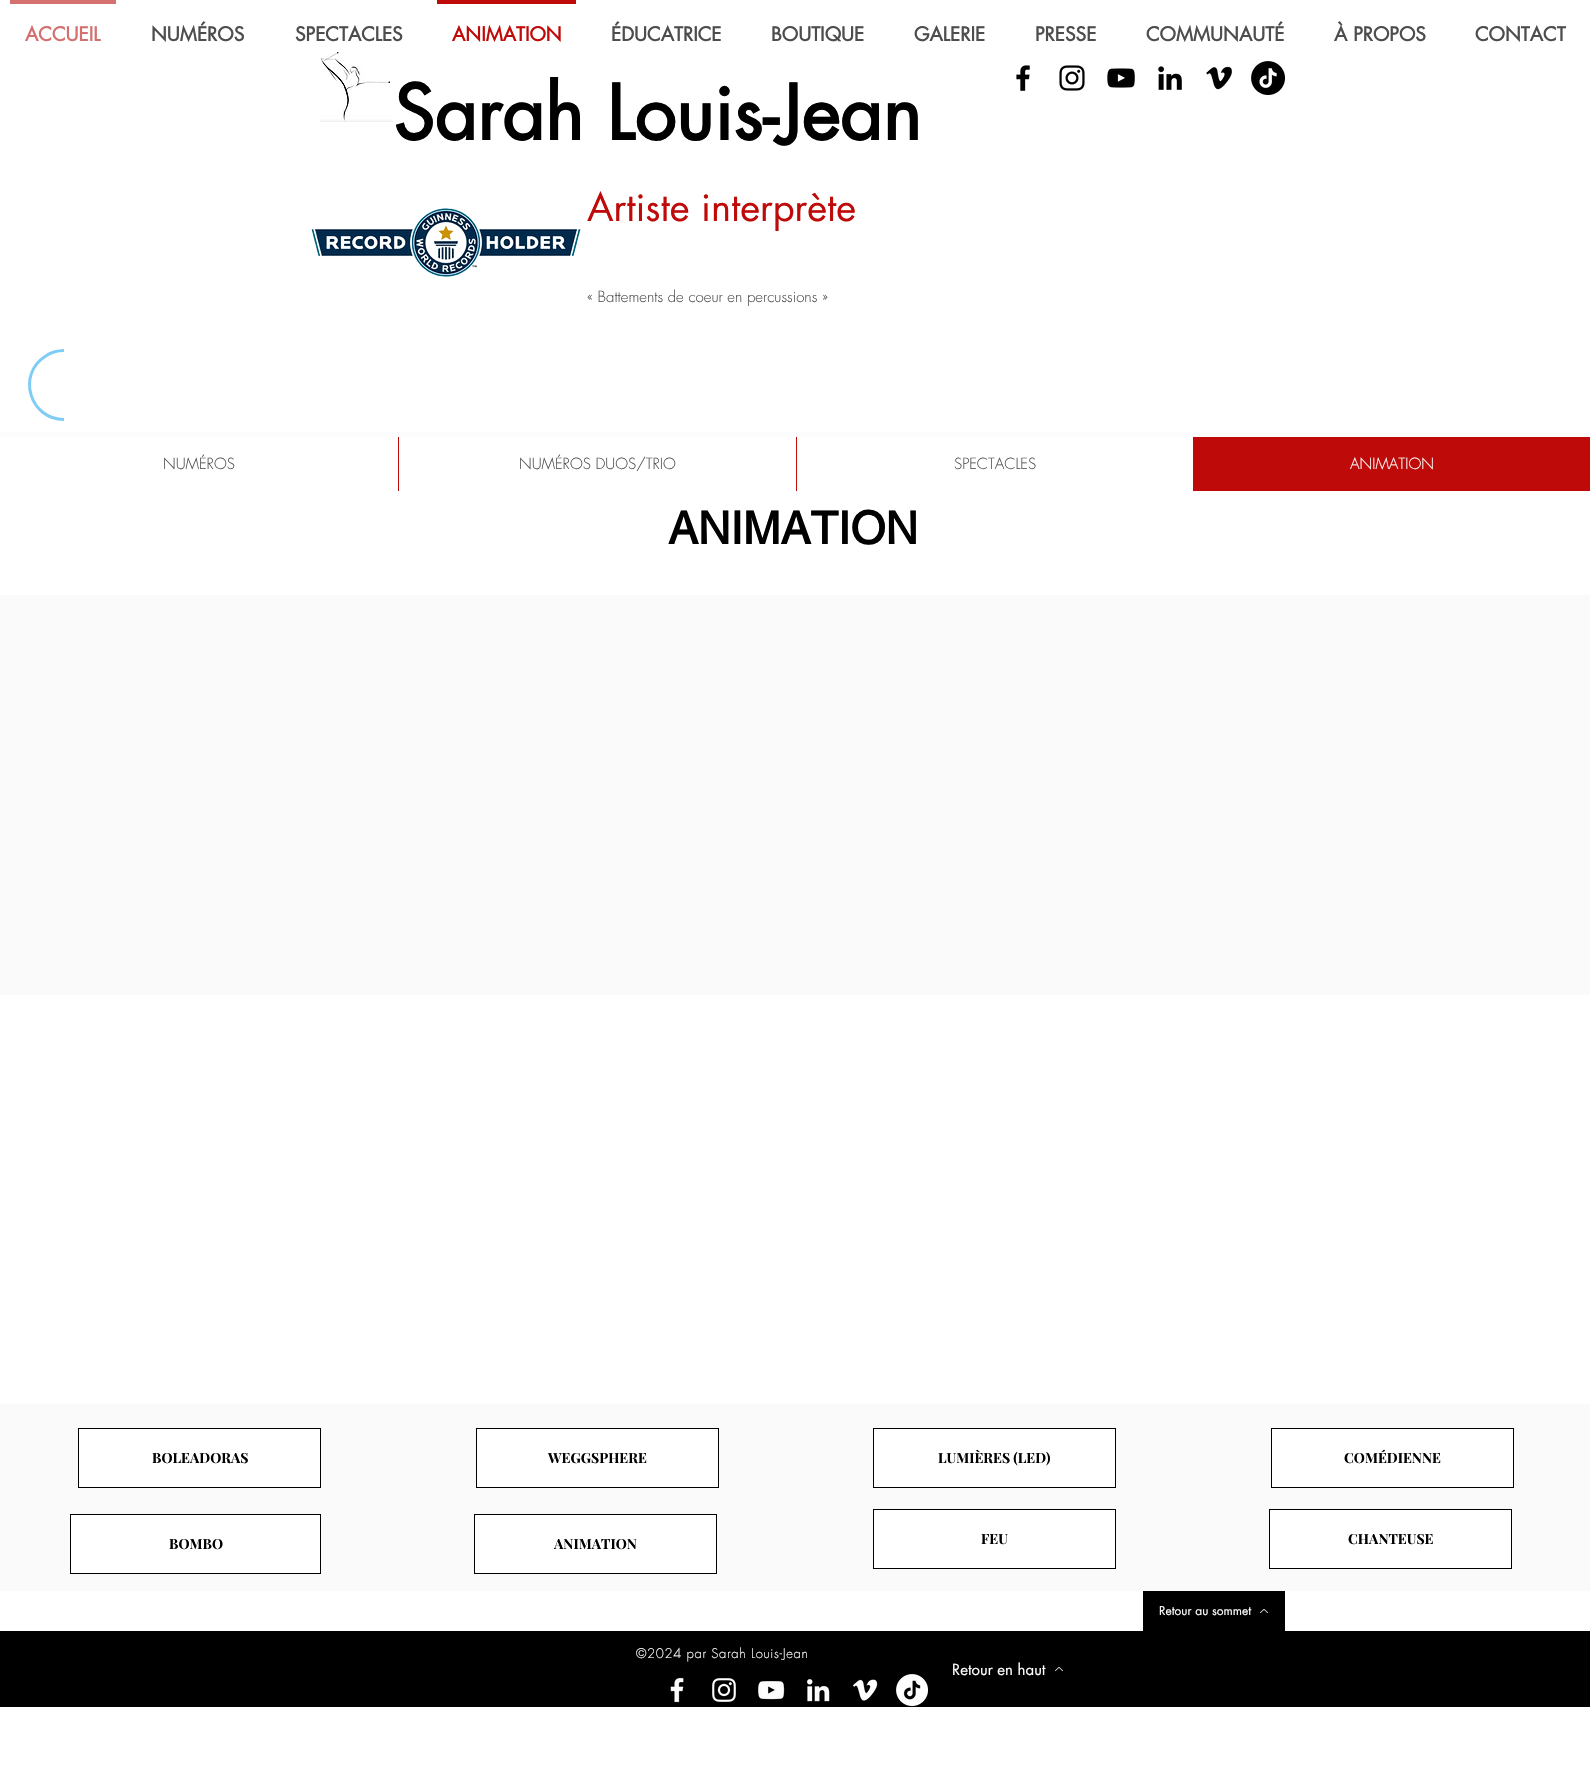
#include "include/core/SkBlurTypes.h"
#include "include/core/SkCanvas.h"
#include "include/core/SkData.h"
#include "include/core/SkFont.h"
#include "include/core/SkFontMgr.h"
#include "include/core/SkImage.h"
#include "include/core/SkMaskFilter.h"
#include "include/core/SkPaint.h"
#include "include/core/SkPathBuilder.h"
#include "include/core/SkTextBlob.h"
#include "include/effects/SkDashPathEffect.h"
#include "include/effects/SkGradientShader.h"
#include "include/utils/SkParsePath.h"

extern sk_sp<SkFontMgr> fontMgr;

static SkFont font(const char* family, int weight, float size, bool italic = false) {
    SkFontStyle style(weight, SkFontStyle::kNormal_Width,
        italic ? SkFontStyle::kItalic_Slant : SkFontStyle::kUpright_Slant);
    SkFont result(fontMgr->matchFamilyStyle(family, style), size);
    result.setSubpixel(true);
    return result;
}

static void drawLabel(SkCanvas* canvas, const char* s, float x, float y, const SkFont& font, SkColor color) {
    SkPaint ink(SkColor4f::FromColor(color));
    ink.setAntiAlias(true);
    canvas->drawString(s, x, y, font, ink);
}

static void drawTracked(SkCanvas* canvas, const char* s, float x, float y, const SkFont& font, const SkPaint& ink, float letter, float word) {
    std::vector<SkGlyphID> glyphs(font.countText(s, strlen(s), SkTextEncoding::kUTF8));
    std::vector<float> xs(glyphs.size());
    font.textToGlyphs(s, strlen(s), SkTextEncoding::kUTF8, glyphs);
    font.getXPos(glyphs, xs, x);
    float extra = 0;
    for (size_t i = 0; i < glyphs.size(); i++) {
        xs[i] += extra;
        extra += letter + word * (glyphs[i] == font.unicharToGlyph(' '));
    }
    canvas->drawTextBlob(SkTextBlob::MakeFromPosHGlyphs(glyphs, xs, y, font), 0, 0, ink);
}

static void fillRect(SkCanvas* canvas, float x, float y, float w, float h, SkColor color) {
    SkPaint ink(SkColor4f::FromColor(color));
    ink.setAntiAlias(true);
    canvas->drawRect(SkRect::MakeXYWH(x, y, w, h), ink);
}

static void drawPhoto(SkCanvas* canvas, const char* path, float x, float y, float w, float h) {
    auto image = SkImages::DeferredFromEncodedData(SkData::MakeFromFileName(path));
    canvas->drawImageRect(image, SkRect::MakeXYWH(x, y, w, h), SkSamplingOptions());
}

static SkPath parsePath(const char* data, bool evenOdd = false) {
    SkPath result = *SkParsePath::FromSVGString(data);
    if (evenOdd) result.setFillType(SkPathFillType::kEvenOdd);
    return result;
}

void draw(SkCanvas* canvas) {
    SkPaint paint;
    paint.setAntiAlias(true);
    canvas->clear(0xFFFFFFFF);
    fillRect(canvas, 10, 0, 106, 4, 0xFFD47070);
    SkFont font1 = font("futura", 700, 19);
    drawLabel(canvas, "ACCUEIL", 25, 41, font1, 0xFFD47070);
    drawLabel(canvas, "NUMÉROS", 151, 41, font1, 0xFF4D4D4D);
    drawLabel(canvas, "SPECTACLES", 295, 41, font1, 0xFF4D4D4D);
    fillRect(canvas, 437, 0, 139, 4, 0xFFBF0A0A);
    drawLabel(canvas, "ANIMATION", 452, 41, font1, 0xFFBF0A0A);
    drawLabel(canvas, "ÉDUCATRICE", 611, 41, font1, 0xFF4D4D4D);
    drawLabel(canvas, "BOUTIQUE", 771, 41, font1, 0xFF4D4D4D);
    drawLabel(canvas, "GALERIE", 914, 41, font1, 0xFF4D4D4D);
    drawLabel(canvas, "PRESSE", 1035, 41, font1, 0xFF4D4D4D);
    drawLabel(canvas, "COMMUNAUTÉ", 1146, 41, font1, 0xFF4D4D4D);
    drawLabel(canvas, "À PROPOS", 1334, 41, font1, 0xFF4D4D4D);
    drawLabel(canvas, "CONTACT", 1475, 41, font1, 0xFF4D4D4D);
    drawPhoto(canvas, "assets/img1.png", 320, 52, 73, 70);
    SkFont font2 = font("futura", 700, 74);
    drawLabel(canvas, "Sarah Louis-Jean", 393, 140, font2, 0xFF000000);
    drawPhoto(canvas, "assets/img2.png", 1016, 65, 14, 26);
    drawPhoto(canvas, "assets/img3.png", 1059, 65, 26, 26);
    drawPhoto(canvas, "assets/img4.png", 1107, 68, 28, 20);
    drawPhoto(canvas, "assets/img5.png", 1158, 66, 24, 24);
    drawPhoto(canvas, "assets/img6.png", 1206, 66, 26, 24);
    drawPhoto(canvas, "assets/img7.png", 1251, 61, 34, 34);
    drawPhoto(canvas, "assets/img8.png", 311, 208, 270, 69);
    SkFont font3 = font("futura", 400, 38);
    drawLabel(canvas, "Artiste interprète", 587, 221, font3, 0xFFBF0A0A);
    SkFont font4 = font("futura", 300, 15);
    drawLabel(canvas, "« Battements de coeur en percussions »", 587, 302, font4, 0xFF4D4D4D);
    fillRect(canvas, 0, 432, 1590, 5, 0xFFFCFCFC);
    paint.setStroke(true);
    paint.setStrokeWidth(3);
    paint.setColor(0xFF7FCCF7);
    canvas->drawPath(parsePath("M64 419.5C30 419.5 16.5 375 45 356.5C50.5 352.5 57 350.5 64 350.5"), paint);
    drawLabel(canvas, "NUMÉROS", 163, 469, font4, 0xFF4D4D4D);
    fillRect(canvas, 398, 437, 1, 54, 0xFFBF0A0A);
    drawLabel(canvas, "NUMÉROS DUOS/TRIO", 519, 469, font4, 0xFF4D4D4D);
    fillRect(canvas, 796, 437, 1, 54, 0xFFBF0A0A);
    drawLabel(canvas, "SPECTACLES", 954, 469, font4, 0xFF4D4D4D);
    fillRect(canvas, 1193, 437, 397, 54, 0xFFBF0A0A);
    drawLabel(canvas, "ANIMATION", 1350, 469, font4, 0xFFFFFFFF);
    SkFont font5 = font("helvetica", 700, 45);
    drawLabel(canvas, "ANIMATION", 668, 544, font5, 0xFF000000);
    fillRect(canvas, 0, 595, 1590, 400, 0xFFFAFAFA);
    fillRect(canvas, 0, 1404, 1590, 187, 0xFFFAFAFA);
    paint.setStroke(false);
    paint.setColor(0xFFFFFFFF);
    canvas->drawRect(SkRect::MakeXYWH(78.5f, 1428.5f, 242, 59), paint);
    paint.setStroke(true);
    paint.setStrokeWidth(1);
    paint.setColor(0xFF000000);
    canvas->drawRect(SkRect::MakeXYWH(78.5f, 1428.5f, 242, 59), paint);
    SkFont font6 = font("Playfair Display", 700, 14);
    drawLabel(canvas, "BOLEADORAS", 152, 1463, font6, 0xFF000000);
    paint.setStroke(false);
    paint.setColor(0xFFFFFFFF);
    canvas->drawRect(SkRect::MakeXYWH(70.5f, 1514.5f, 250, 59), paint);
    paint.setStroke(true);
    paint.setColor(0xFF000000);
    canvas->drawRect(SkRect::MakeXYWH(70.5f, 1514.5f, 250, 59), paint);
    drawLabel(canvas, "BOMBO", 169, 1549, font6, 0xFF000000);
    paint.setStroke(false);
    paint.setColor(0xFFFFFFFF);
    canvas->drawRect(SkRect::MakeXYWH(476.5f, 1428.5f, 242, 59), paint);
    paint.setStroke(true);
    paint.setColor(0xFF000000);
    canvas->drawRect(SkRect::MakeXYWH(476.5f, 1428.5f, 242, 59), paint);
    drawLabel(canvas, "WEGGSPHERE", 548, 1463, font6, 0xFF000000);
    paint.setStroke(false);
    paint.setColor(0xFFFFFFFF);
    canvas->drawRect(SkRect::MakeXYWH(474.5f, 1514.5f, 242, 59), paint);
    paint.setStroke(true);
    paint.setColor(0xFF000000);
    canvas->drawRect(SkRect::MakeXYWH(474.5f, 1514.5f, 242, 59), paint);
    drawLabel(canvas, "ANIMATION", 554, 1549, font6, 0xFF000000);
    paint.setStroke(false);
    paint.setColor(0xFFFFFFFF);
    canvas->drawRect(SkRect::MakeXYWH(873.5f, 1428.5f, 242, 59), paint);
    paint.setStroke(true);
    paint.setColor(0xFF000000);
    canvas->drawRect(SkRect::MakeXYWH(873.5f, 1428.5f, 242, 59), paint);
    drawLabel(canvas, "LUMIÈRES (LED)", 938, 1463, font6, 0xFF000000);
    paint.setStroke(false);
    paint.setColor(0xFFFFFFFF);
    canvas->drawRect(SkRect::MakeXYWH(873.5f, 1509.5f, 242, 59), paint);
    paint.setStroke(true);
    paint.setColor(0xFF000000);
    canvas->drawRect(SkRect::MakeXYWH(873.5f, 1509.5f, 242, 59), paint);
    drawLabel(canvas, "FEU", 981, 1544, font6, 0xFF000000);
    paint.setStroke(false);
    paint.setColor(0xFFFFFFFF);
    canvas->drawRect(SkRect::MakeXYWH(1271.5f, 1428.5f, 242, 59), paint);
    paint.setStroke(true);
    paint.setColor(0xFF000000);
    canvas->drawRect(SkRect::MakeXYWH(1271.5f, 1428.5f, 242, 59), paint);
    drawLabel(canvas, "COMÉDIENNE", 1344, 1463, font6, 0xFF000000);
    paint.setStroke(false);
    paint.setColor(0xFFFFFFFF);
    canvas->drawRect(SkRect::MakeXYWH(1269.5f, 1509.5f, 242, 59), paint);
    paint.setStroke(true);
    paint.setColor(0xFF000000);
    canvas->drawRect(SkRect::MakeXYWH(1269.5f, 1509.5f, 242, 59), paint);
    drawLabel(canvas, "CHANTEUSE", 1348, 1544, font6, 0xFF000000);
    fillRect(canvas, 1143, 1591, 142, 40, 0xFF000000);
    SkFont font7 = font("futura", 400, 12);
    drawLabel(canvas, "Retour au sommet", 1159, 1615, font7, 0xFFFFFFFF);
    drawPhoto(canvas, "assets/img9.png", 1260, 1609, 8, 5);
    fillRect(canvas, 0, 1631, 1590, 76, 0xFF000000);
    SkFont font8 = font("futura", 300, 13);
    paint.setStroke(false);
    paint.setColor(0xFFFFFFFF);
    drawTracked(canvas, "©2024 par Sarah Louis-Jean", 636, 1658, font8, paint, 0.65f, 0);
    SkFont font9 = font("futura", 400, 15);
    drawLabel(canvas, "Retour en haut", 952, 1675, font9, 0xFFFFFFFF);
    drawPhoto(canvas, "assets/img9.png", 1055, 1667, 8, 5);
    drawPhoto(canvas, "assets/img10.png", 670, 1677, 14, 26);
    drawPhoto(canvas, "assets/img11.png", 712, 1678, 24, 24);
    drawPhoto(canvas, "assets/img12.png", 758, 1681, 27, 19);
    drawPhoto(canvas, "assets/img13.png", 806, 1679, 24, 23);
    drawPhoto(canvas, "assets/img14.png", 853, 1679, 25, 22);
    drawPhoto(canvas, "assets/img15.png", 896, 1674, 32, 32);
}
